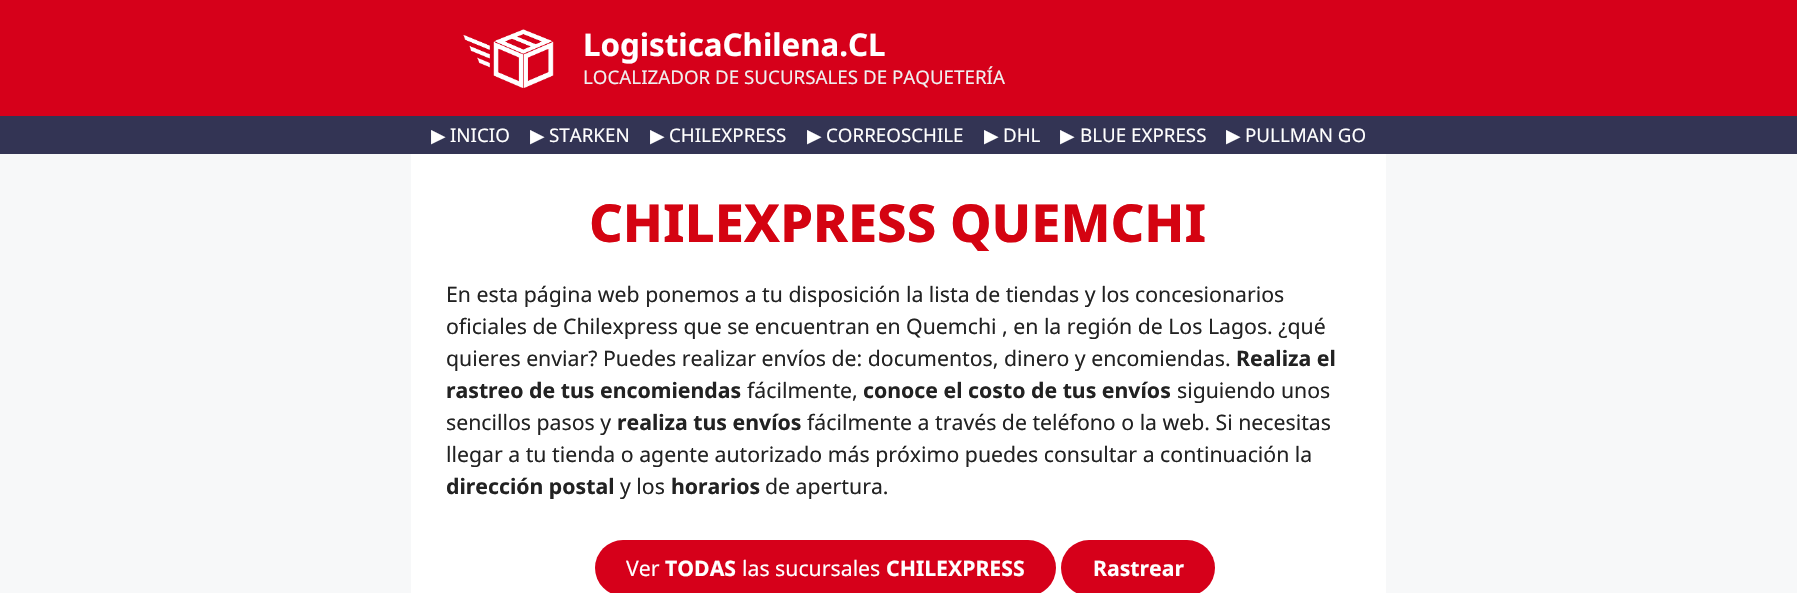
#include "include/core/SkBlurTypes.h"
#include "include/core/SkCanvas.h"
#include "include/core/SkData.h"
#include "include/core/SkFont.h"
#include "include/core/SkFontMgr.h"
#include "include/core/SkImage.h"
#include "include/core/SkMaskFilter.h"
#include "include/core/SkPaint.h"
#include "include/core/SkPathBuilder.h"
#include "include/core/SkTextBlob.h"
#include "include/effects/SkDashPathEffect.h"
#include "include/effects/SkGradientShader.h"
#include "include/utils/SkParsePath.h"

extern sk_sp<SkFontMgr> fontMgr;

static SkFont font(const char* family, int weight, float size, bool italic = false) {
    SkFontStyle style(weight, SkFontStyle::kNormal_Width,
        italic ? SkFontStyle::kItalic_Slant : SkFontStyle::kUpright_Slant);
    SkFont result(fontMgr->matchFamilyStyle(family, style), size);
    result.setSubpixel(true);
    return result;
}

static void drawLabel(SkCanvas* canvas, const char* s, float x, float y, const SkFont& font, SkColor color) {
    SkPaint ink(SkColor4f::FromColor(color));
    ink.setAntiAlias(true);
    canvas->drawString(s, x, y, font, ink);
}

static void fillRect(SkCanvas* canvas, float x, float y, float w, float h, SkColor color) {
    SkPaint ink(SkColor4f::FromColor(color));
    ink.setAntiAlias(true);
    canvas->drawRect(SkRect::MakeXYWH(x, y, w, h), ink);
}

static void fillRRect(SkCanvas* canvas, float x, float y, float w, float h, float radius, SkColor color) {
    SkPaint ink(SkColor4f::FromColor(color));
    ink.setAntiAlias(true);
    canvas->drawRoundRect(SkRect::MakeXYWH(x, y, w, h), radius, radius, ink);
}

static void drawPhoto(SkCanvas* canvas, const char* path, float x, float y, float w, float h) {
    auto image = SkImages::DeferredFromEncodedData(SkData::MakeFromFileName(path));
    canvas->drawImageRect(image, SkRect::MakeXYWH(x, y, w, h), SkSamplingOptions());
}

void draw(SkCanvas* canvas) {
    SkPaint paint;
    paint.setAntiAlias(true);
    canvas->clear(0xFFF7F8F9);
    fillRect(canvas, 0, 0, 1797, 116, 0xFFD6001A);
    drawPhoto(canvas, "assets/img1.png", 463, 29, 91, 59);
    SkFont font1 = font("Noto Sans", 700, 31.25f);
    drawLabel(canvas, "LogisticaChilena.CL", 583, 56, font1, 0xFFFFFFFF);
    SkFont font2 = font("Noto Sans", 400, 18.75f);
    drawLabel(canvas, "LOCALIZADOR DE SUCURSALES DE PAQUETERÍA", 583, 84, font2, 0xFFF0F0F0);
    fillRect(canvas, 0, 116, 1797, 38, 0xFF333454);
    SkFont font3 = font("DejaVu Sans", 400, 18.75f);
    drawLabel(canvas, "▶", 431, 142, font3, 0xFFFFFFFF);
    drawLabel(canvas, "INICIO", 450, 142, font2, 0xFFFFFFFF);
    drawLabel(canvas, "▶", 530, 142, font3, 0xFFFFFFFF);
    drawLabel(canvas, "STARKEN", 549, 142, font2, 0xFFFFFFFF);
    drawLabel(canvas, "▶", 650, 142, font3, 0xFFFFFFFF);
    drawLabel(canvas, "CHILEXPRESS", 669, 142, font2, 0xFFFFFFFF);
    drawLabel(canvas, "▶", 807, 142, font3, 0xFFFFFFFF);
    drawLabel(canvas, "CORREOSCHILE", 826, 142, font2, 0xFFFFFFFF);
    drawLabel(canvas, "▶", 984, 142, font3, 0xFFFFFFFF);
    drawLabel(canvas, "DHL", 1003, 142, font2, 0xFFFFFFFF);
    drawLabel(canvas, "▶", 1060, 142, font3, 0xFFFFFFFF);
    drawLabel(canvas, "BLUE EXPRESS", 1080, 142, font2, 0xFFFFFFFF);
    drawLabel(canvas, "▶", 1226, 142, font3, 0xFFFFFFFF);
    drawLabel(canvas, "PULLMAN GO", 1245, 142, font2, 0xFFFFFFFF);
    fillRect(canvas, 411, 154, 975, 439, 0xFFFFFFFF);
    SkFont font4 = font("Noto Sans", 800, 52.5f);
    drawLabel(canvas, "CHILEXPRESS QUEMCHI", 589, 242, font4, 0xFFD40311);
    SkFont font5 = font("Noto Sans", 400, 21.25f);
    drawLabel(canvas, "En esta página web ponemos a tu disposición la lista de tiendas y los concesionarios", 446, 302, font5, 0xFF222222);
    drawLabel(canvas, "oficiales de Chilexpress que se encuentran en Quemchi , en la región de Los Lagos. ¿qué", 446, 334, font5, 0xFF222222);
    drawLabel(canvas, "quieres enviar? Puedes realizar envíos de: documentos, dinero y encomiendas.", 446, 366, font5, 0xFF222222);
    SkFont font6 = font("Noto Sans", 700, 21.25f);
    drawLabel(canvas, "Realiza el", 1236, 366, font6, 0xFF222222);
    drawLabel(canvas, "rastreo de tus encomiendas", 446, 398, font6, 0xFF222222);
    drawLabel(canvas, "fácilmente,", 747, 398, font5, 0xFF222222);
    drawLabel(canvas, "conoce el costo de tus envíos", 863, 398, font6, 0xFF222222);
    drawLabel(canvas, "siguiendo unos", 1177, 398, font5, 0xFF222222);
    drawLabel(canvas, "sencillos pasos y", 446, 430, font5, 0xFF222222);
    drawLabel(canvas, "realiza tus envíos", 617, 430, font6, 0xFF222222);
    drawLabel(canvas, "fácilmente a través de teléfono o la web. Si necesitas", 807, 430, font5, 0xFF222222);
    drawLabel(canvas, "llegar a tu tienda o agente autorizado más próximo puedes consultar a continuación la", 446, 462, font5, 0xFF222222);
    drawLabel(canvas, "dirección postal", 446, 494, font6, 0xFF222222);
    drawLabel(canvas, "y los", 620, 494, font5, 0xFF222222);
    drawLabel(canvas, "horarios", 671, 494, font6, 0xFF222222);
    drawLabel(canvas, "de apertura.", 765, 494, font5, 0xFF222222);
    fillRRect(canvas, 595, 540, 461, 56, 28, 0xFFD6001A);
    drawLabel(canvas, "Ver", 626, 576, font5, 0xFFFFFFFF);
    drawLabel(canvas, "TODAS", 665, 576, font6, 0xFFFFFFFF);
    drawLabel(canvas, "las sucursales", 742, 576, font5, 0xFFFFFFFF);
    drawLabel(canvas, "CHILEXPRESS", 886, 576, font6, 0xFFFFFFFF);
    fillRRect(canvas, 1061, 540, 154, 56, 28, 0xFFD6001A);
    drawLabel(canvas, "Rastrear", 1093, 576, font6, 0xFFFFFFFF);
}
